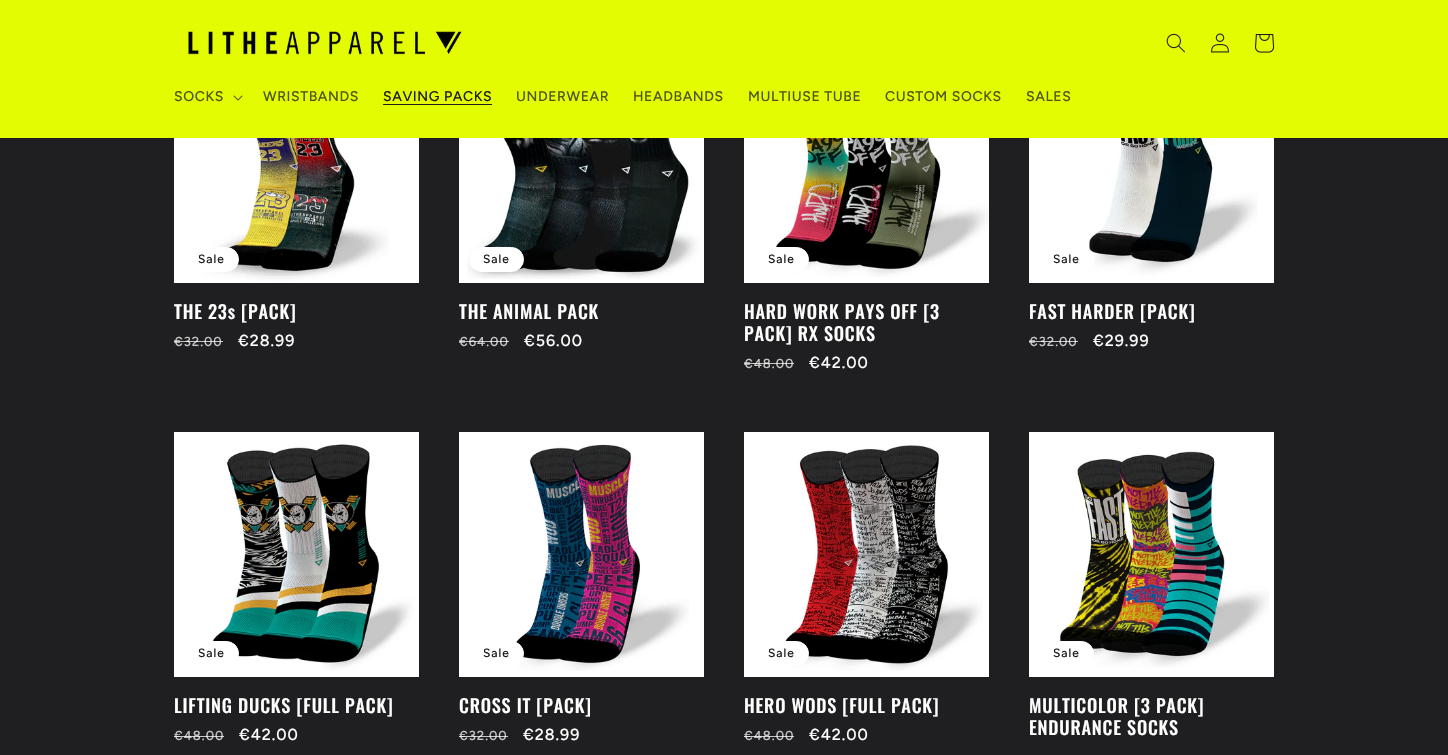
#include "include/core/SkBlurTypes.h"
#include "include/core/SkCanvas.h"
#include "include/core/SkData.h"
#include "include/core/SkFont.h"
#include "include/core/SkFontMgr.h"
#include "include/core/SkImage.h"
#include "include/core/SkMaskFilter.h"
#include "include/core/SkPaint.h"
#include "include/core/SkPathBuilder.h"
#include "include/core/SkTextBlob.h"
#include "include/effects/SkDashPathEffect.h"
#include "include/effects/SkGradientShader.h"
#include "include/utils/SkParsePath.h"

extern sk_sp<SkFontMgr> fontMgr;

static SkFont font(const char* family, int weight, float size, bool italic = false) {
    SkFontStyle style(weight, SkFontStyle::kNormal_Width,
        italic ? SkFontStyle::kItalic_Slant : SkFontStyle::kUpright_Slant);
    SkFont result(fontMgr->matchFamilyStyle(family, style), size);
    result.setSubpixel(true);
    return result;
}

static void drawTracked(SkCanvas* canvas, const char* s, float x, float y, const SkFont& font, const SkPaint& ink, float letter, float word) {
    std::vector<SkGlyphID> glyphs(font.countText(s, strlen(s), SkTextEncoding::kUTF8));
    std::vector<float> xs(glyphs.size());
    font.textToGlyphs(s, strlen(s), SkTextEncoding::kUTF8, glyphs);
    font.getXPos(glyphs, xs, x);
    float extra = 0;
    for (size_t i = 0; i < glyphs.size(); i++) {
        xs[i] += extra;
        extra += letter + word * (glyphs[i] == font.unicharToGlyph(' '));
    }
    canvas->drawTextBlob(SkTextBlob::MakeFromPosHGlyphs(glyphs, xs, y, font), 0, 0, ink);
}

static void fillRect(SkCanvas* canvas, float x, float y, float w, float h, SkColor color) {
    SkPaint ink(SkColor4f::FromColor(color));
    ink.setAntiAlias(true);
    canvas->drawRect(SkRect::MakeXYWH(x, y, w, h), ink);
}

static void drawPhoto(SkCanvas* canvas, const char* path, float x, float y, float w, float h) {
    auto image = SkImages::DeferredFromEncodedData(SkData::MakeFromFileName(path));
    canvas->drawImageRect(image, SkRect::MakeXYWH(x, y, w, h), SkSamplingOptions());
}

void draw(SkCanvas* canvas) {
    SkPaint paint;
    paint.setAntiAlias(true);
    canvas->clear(0xFF1F1F21);
    fillRect(canvas, 0, 0, 1448, 138, 0xFFE3FC02);
    drawPhoto(canvas, "assets/img1.png", 188, 31, 274, 24);
    drawPhoto(canvas, "assets/img2.png", 1166, 33, 19, 20);
    drawPhoto(canvas, "assets/img3.png", 1211, 33, 18, 20);
    drawPhoto(canvas, "assets/img4.png", 1255, 34, 20, 19);
    SkFont font1 = font("Figtree", 500, 14);
    paint.setColor(0xFF505619);
    drawTracked(canvas, "SOCKS", 174, 101, font1, paint, 0.6f, 0);
    drawPhoto(canvas, "assets/img5.png", 233, 95, 10, 6);
    drawTracked(canvas, "WRISTBANDS", 263, 101, font1, paint, 0.6f, 0);
    paint.setColor(0xFF1F1F21);
    drawTracked(canvas, "SAVING PACKS", 383, 101, font1, paint, 0.6f, 0);
    fillRect(canvas, 383, 104, 109, 1, 0xFF1F1F21);
    paint.setColor(0xFF505619);
    drawTracked(canvas, "UNDERWEAR", 516, 101, font1, paint, 0.6f, 0);
    drawTracked(canvas, "HEADBANDS", 633, 101, font1, paint, 0.6f, 0);
    drawTracked(canvas, "MULTIUSE TUBE", 748, 101, font1, paint, 0.6f, 0);
    drawTracked(canvas, "CUSTOM SOCKS", 885, 101, font1, paint, 0.6f, 0);
    drawTracked(canvas, "SALES", 1026, 101, font1, paint, 0.6f, 0);
    fillRect(canvas, 174, 138, 245, 145, 0xFFFFFFFF);
    drawPhoto(canvas, "assets/img6.png", 201, 138, 188, 143);
    paint.setColor(0xFFFFFFFF);
    canvas->drawRoundRect(SkRect::MakeXYWH(184.5f, 247.5f, 54, 24), 12, 12, paint);
    paint.setStroke(true);
    paint.setStrokeWidth(1);
    canvas->drawRoundRect(SkRect::MakeXYWH(184.5f, 247.5f, 54, 24), 12, 12, paint);
    SkFont font2 = font("Figtree", 500, 12);
    paint.setStroke(false);
    paint.setColor(0xFF1F1F21);
    drawTracked(canvas, "Sale", 198, 263, font2, paint, 1, 0);
    SkFont font3 = font("Oswald", 500, 18.25f);
    paint.setColor(0xFFFFFFFF);
    drawTracked(canvas, "THE 23s [PACK]", 174, 319, font3, paint, 0.8f, 0);
    SkFont font4 = font("Figtree", 500, 13);
    paint.setColor(0xFFC7C7C8);
    drawTracked(canvas, "€32.00", 174, 346, font4, paint, 1, 0);
    fillRect(canvas, 174, 341, 49, 1, 0xBFFFFFFF);
    SkFont font5 = font("Figtree", 500, 16);
    paint.setColor(0xFFFFFFFF);
    drawTracked(canvas, "€28.99", 238, 346, font5, paint, 1, 0);
    fillRect(canvas, 459, 138, 245, 145, 0xFFFFFFFF);
    drawPhoto(canvas, "assets/img7.png", 467, 138, 232, 141);
    canvas->drawRoundRect(SkRect::MakeXYWH(469.5f, 247.5f, 54, 24), 12, 12, paint);
    paint.setStroke(true);
    canvas->drawRoundRect(SkRect::MakeXYWH(469.5f, 247.5f, 54, 24), 12, 12, paint);
    paint.setStroke(false);
    paint.setColor(0xFF1F1F21);
    drawTracked(canvas, "Sale", 483, 263, font2, paint, 1, 0);
    paint.setColor(0xFFFFFFFF);
    drawTracked(canvas, "THE ANIMAL PACK", 459, 319, font3, paint, 0.8f, 0);
    paint.setColor(0xFFC7C7C8);
    drawTracked(canvas, "€64.00", 459, 346, font4, paint, 1, 0);
    fillRect(canvas, 459, 341, 50, 1, 0xBFFFFFFF);
    paint.setColor(0xFFFFFFFF);
    drawTracked(canvas, "€56.00", 524, 346, font5, paint, 1, 0);
    fillRect(canvas, 744, 138, 245, 145, 0xFFFFFFFF);
    drawPhoto(canvas, "assets/img8.png", 774, 138, 215, 139);
    canvas->drawRoundRect(SkRect::MakeXYWH(754.5f, 247.5f, 54, 24), 12, 12, paint);
    paint.setStroke(true);
    canvas->drawRoundRect(SkRect::MakeXYWH(754.5f, 247.5f, 54, 24), 12, 12, paint);
    paint.setStroke(false);
    paint.setColor(0xFF1F1F21);
    drawTracked(canvas, "Sale", 768, 263, font2, paint, 1, 0);
    paint.setColor(0xFFFFFFFF);
    drawTracked(canvas, "HARD WORK PAYS OFF [3", 744, 319, font3, paint, 0.8f, 0);
    drawTracked(canvas, "PACK] RX SOCKS", 744, 341, font3, paint, 0.8f, 0);
    paint.setColor(0xFFC7C7C8);
    drawTracked(canvas, "€48.00", 744, 368, font4, paint, 1, 0);
    fillRect(canvas, 744, 363, 50, 1, 0xBFFFFFFF);
    paint.setColor(0xFFFFFFFF);
    drawTracked(canvas, "€42.00", 809, 368, font5, paint, 1, 0);
    fillRect(canvas, 1029, 138, 245, 145, 0xFFFFFFFF);
    drawPhoto(canvas, "assets/img9.png", 1089, 138, 169, 137);
    canvas->drawRoundRect(SkRect::MakeXYWH(1039.5f, 247.5f, 54, 24), 12, 12, paint);
    paint.setStroke(true);
    canvas->drawRoundRect(SkRect::MakeXYWH(1039.5f, 247.5f, 54, 24), 12, 12, paint);
    paint.setStroke(false);
    paint.setColor(0xFF1F1F21);
    drawTracked(canvas, "Sale", 1053, 263, font2, paint, 1, 0);
    paint.setColor(0xFFFFFFFF);
    drawTracked(canvas, "FAST HARDER [PACK]", 1029, 319, font3, paint, 0.8f, 0);
    paint.setColor(0xFFC7C7C8);
    drawTracked(canvas, "€32.00", 1029, 346, font4, paint, 1, 0);
    fillRect(canvas, 1029, 341, 49, 1, 0xBFFFFFFF);
    paint.setColor(0xFFFFFFFF);
    drawTracked(canvas, "€29.99", 1093, 346, font5, paint, 1, 0);
    fillRect(canvas, 174, 432, 245, 245, 0xFFFFFFFF);
    drawPhoto(canvas, "assets/img10.png", 211, 444, 203, 227);
    canvas->drawRoundRect(SkRect::MakeXYWH(184.5f, 641.5f, 54, 24), 12, 12, paint);
    paint.setStroke(true);
    canvas->drawRoundRect(SkRect::MakeXYWH(184.5f, 641.5f, 54, 24), 12, 12, paint);
    paint.setStroke(false);
    paint.setColor(0xFF1F1F21);
    drawTracked(canvas, "Sale", 198, 657, font2, paint, 1, 0);
    paint.setColor(0xFFFFFFFF);
    drawTracked(canvas, "LIFTING DUCKS [FULL PACK]", 174, 713, font3, paint, 0.8f, 0);
    paint.setColor(0xFFC7C7C8);
    drawTracked(canvas, "€48.00", 174, 740, font4, paint, 1, 0);
    fillRect(canvas, 174, 736, 50, 1, 0xBFFFFFFF);
    paint.setColor(0xFFFFFFFF);
    drawTracked(canvas, "€42.00", 239, 740, font5, paint, 1, 0);
    fillRect(canvas, 459, 432, 245, 245, 0xFFFFFFFF);
    drawPhoto(canvas, "assets/img11.png", 514, 444, 175, 227);
    canvas->drawRoundRect(SkRect::MakeXYWH(469.5f, 641.5f, 54, 24), 12, 12, paint);
    paint.setStroke(true);
    canvas->drawRoundRect(SkRect::MakeXYWH(469.5f, 641.5f, 54, 24), 12, 12, paint);
    paint.setStroke(false);
    paint.setColor(0xFF1F1F21);
    drawTracked(canvas, "Sale", 483, 657, font2, paint, 1, 0);
    paint.setColor(0xFFFFFFFF);
    drawTracked(canvas, "CROSS IT [PACK]", 459, 713, font3, paint, 0.8f, 0);
    paint.setColor(0xFFC7C7C8);
    drawTracked(canvas, "€32.00", 459, 740, font4, paint, 1, 0);
    fillRect(canvas, 459, 736, 49, 1, 0xBFFFFFFF);
    paint.setColor(0xFFFFFFFF);
    drawTracked(canvas, "€28.99", 523, 740, font5, paint, 1, 0);
    fillRect(canvas, 744, 432, 245, 245, 0xFFFFFFFF);
    drawPhoto(canvas, "assets/img12.png", 782, 445, 201, 226);
    canvas->drawRoundRect(SkRect::MakeXYWH(754.5f, 641.5f, 54, 24), 12, 12, paint);
    paint.setStroke(true);
    canvas->drawRoundRect(SkRect::MakeXYWH(754.5f, 641.5f, 54, 24), 12, 12, paint);
    paint.setStroke(false);
    paint.setColor(0xFF1F1F21);
    drawTracked(canvas, "Sale", 768, 657, font2, paint, 1, 0);
    paint.setColor(0xFFFFFFFF);
    drawTracked(canvas, "HERO WODS [FULL PACK]", 744, 713, font3, paint, 0.8f, 0);
    paint.setColor(0xFFC7C7C8);
    drawTracked(canvas, "€48.00", 744, 740, font4, paint, 1, 0);
    fillRect(canvas, 744, 736, 50, 1, 0xBFFFFFFF);
    paint.setColor(0xFFFFFFFF);
    drawTracked(canvas, "€42.00", 809, 740, font5, paint, 1, 0);
    fillRect(canvas, 1029, 432, 245, 245, 0xFFFFFFFF);
    drawPhoto(canvas, "assets/img13.png", 1060, 451, 209, 217);
    canvas->drawRoundRect(SkRect::MakeXYWH(1039.5f, 641.5f, 54, 24), 12, 12, paint);
    paint.setStroke(true);
    canvas->drawRoundRect(SkRect::MakeXYWH(1039.5f, 641.5f, 54, 24), 12, 12, paint);
    paint.setStroke(false);
    paint.setColor(0xFF1F1F21);
    drawTracked(canvas, "Sale", 1053, 657, font2, paint, 1, 0);
    paint.setColor(0xFFFFFFFF);
    drawTracked(canvas, "MULTICOLOR [3 PACK]", 1029, 713, font3, paint, 0.8f, 0);
    drawTracked(canvas, "ENDURANCE SOCKS", 1029, 735, font3, paint, 0.8f, 0);
}
